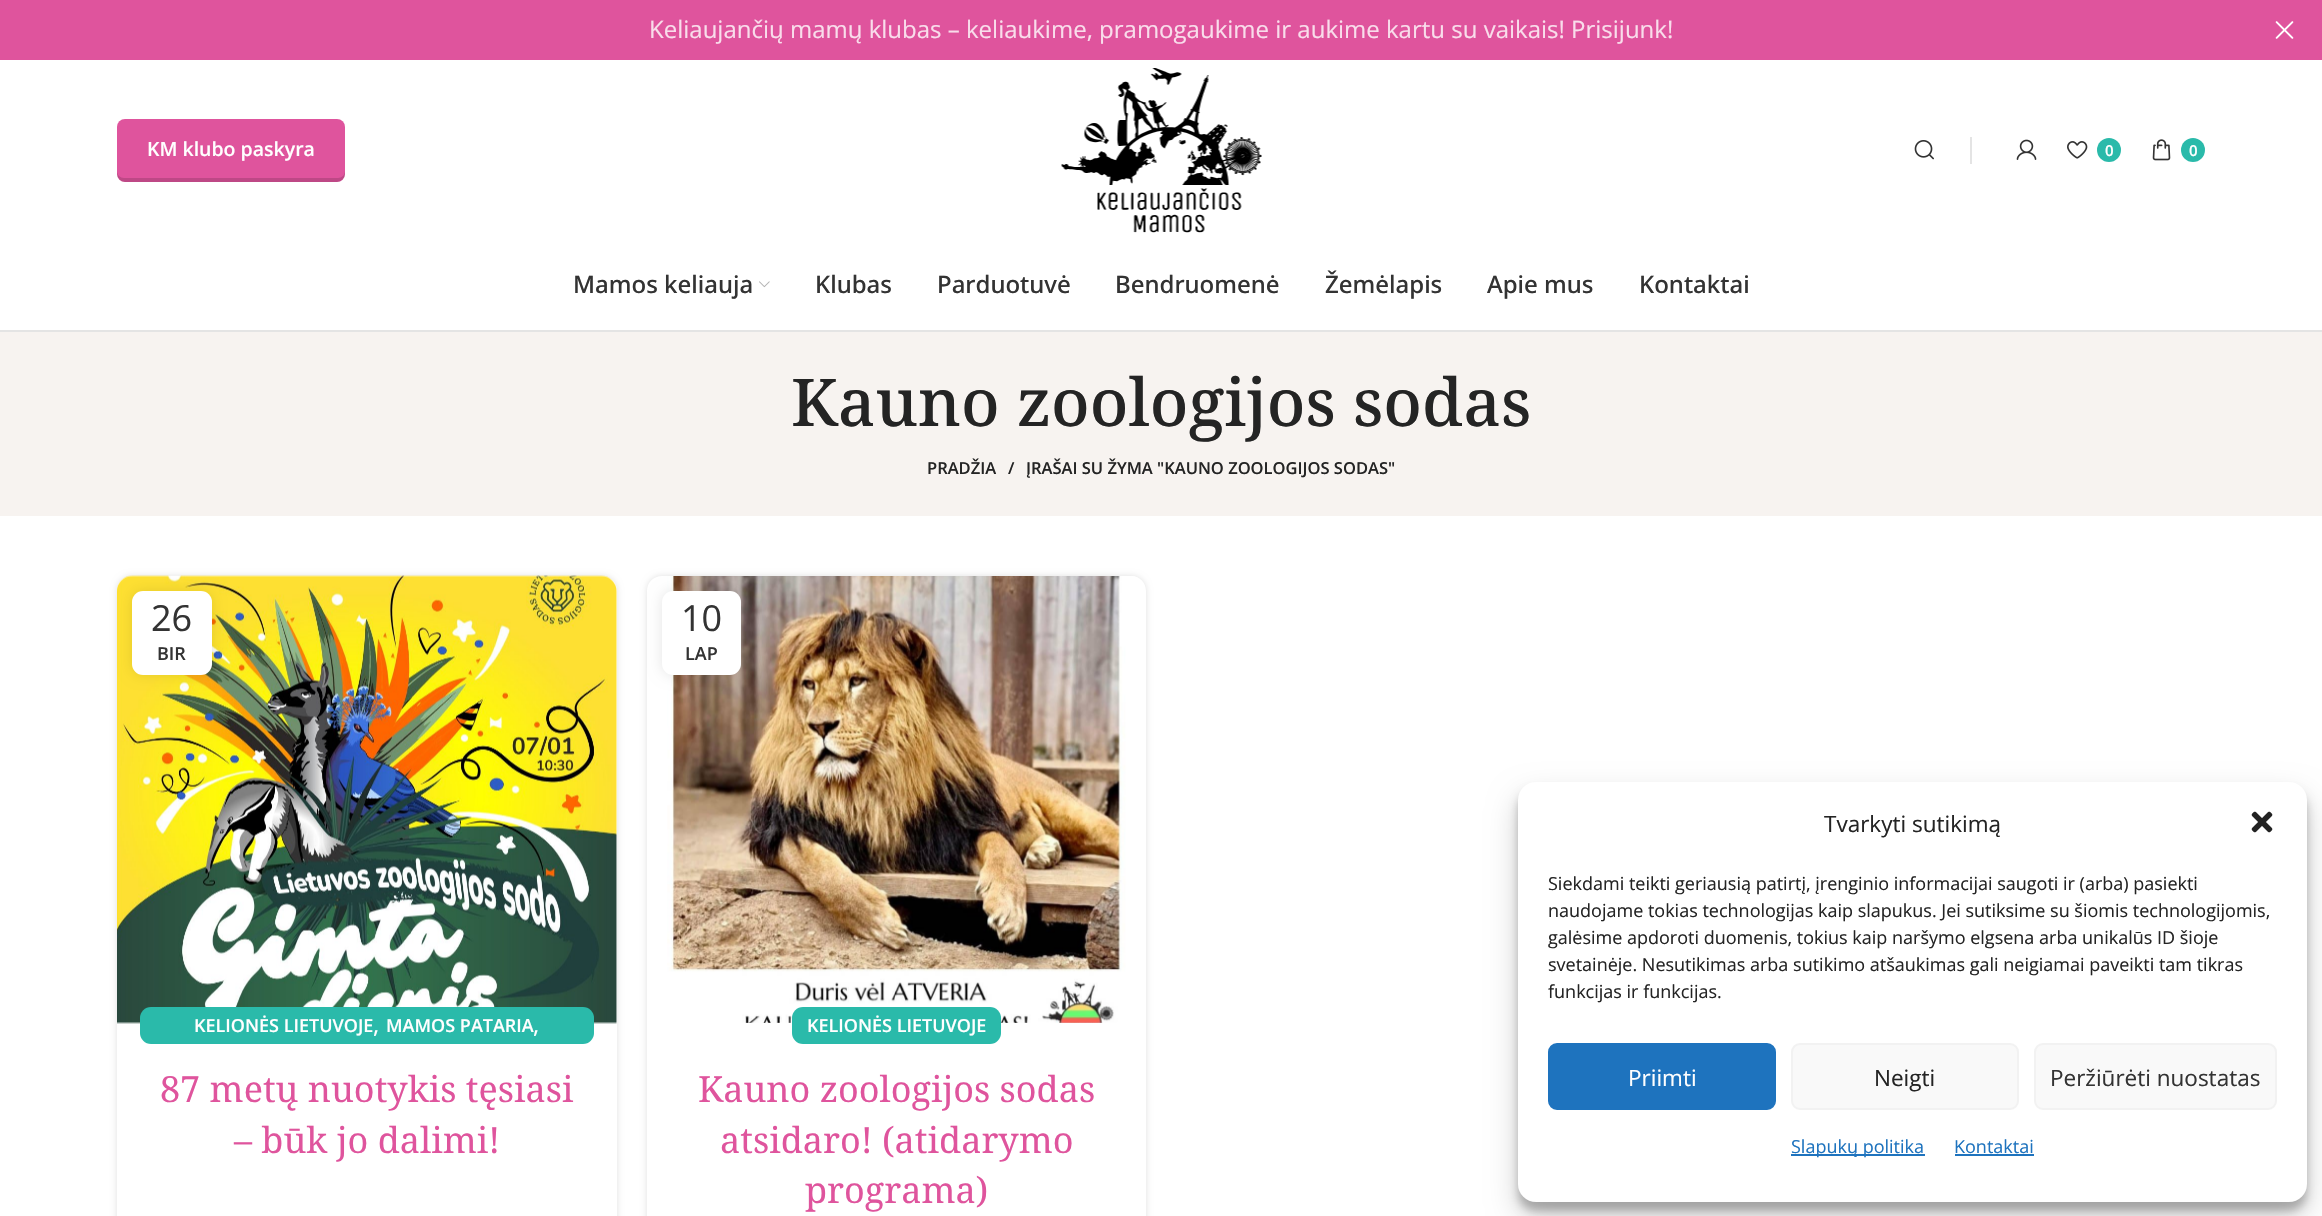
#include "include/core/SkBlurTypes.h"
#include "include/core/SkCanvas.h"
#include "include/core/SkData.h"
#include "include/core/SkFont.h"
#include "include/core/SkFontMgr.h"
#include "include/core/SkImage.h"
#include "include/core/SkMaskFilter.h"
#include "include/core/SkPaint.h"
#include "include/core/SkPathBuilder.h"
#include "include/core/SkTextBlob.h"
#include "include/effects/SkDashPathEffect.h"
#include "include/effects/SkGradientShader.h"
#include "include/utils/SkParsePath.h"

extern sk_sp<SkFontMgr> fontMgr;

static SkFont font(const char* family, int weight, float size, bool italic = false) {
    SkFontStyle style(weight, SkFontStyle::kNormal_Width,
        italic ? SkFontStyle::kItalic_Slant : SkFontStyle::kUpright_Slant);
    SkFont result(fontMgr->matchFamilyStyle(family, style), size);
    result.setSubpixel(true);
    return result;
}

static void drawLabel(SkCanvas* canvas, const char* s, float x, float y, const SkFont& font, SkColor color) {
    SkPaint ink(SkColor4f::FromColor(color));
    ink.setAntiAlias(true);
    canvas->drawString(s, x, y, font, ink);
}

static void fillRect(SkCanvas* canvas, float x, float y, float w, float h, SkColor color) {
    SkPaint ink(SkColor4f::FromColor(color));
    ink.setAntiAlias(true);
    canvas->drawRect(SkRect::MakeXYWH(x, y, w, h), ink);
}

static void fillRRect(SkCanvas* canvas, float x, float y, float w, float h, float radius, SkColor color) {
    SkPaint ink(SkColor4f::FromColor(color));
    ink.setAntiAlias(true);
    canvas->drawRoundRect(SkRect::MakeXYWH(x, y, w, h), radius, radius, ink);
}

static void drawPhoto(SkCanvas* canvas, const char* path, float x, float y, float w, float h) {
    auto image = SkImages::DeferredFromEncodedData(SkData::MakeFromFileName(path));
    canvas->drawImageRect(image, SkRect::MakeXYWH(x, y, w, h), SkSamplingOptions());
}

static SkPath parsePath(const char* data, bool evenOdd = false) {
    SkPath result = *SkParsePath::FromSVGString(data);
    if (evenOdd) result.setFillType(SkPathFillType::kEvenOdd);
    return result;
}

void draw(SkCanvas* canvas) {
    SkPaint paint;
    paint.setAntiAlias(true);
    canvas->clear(0xFFFFFFFF);
    fillRect(canvas, 0, 0, 2322, 60, 0xFFDF549D);
    SkFont font1 = font("Open Sans", 400, 24);
    drawLabel(canvas, "Keliaujančių mamų klubas – keliaukime, pramogaukime ir aukime kartu su vaikais! Prisijunk!", 649, 38, font1, 0xFFF9DDEB);
    drawPhoto(canvas, "assets/img1.png", 2275, 21, 19, 18);
    fillRRect(canvas, 117, 119, 228, 63, 8, 0xFFDF549D);
    paint.setColor(0x26000000);
    canvas->drawPath(parsePath("M117 171V174C117 178 121 182 125 182H337C341 182 345 178 345 174V171C345 175 342 178 338 178H124C120 178 117 175 117 171Z"), paint);
    SkFont font2 = font("Open Sans", 600, 19.5f);
    drawLabel(canvas, "KM klubo paskyra", 147, 156, font2, 0xFFFFFFFF);
    drawPhoto(canvas, "assets/img2.png", 1061, 68, 201, 165);
    drawPhoto(canvas, "assets/img3.png", 1914, 140, 20, 20);
    fillRect(canvas, 1970, 137, 2, 27, 0xFFE4E4E4);
    drawPhoto(canvas, "assets/img4.png", 2016, 139, 21, 21);
    drawPhoto(canvas, "assets/img5.png", 2067, 141, 21, 18);
    paint.setColor(0xFF2ABAAA);
    canvas->drawCircle(2109, 150, 12, paint);
    SkFont font3 = font("Open Sans", 600, 15);
    drawLabel(canvas, "0", 2105, 156, font3, 0xFFFFFFFF);
    drawPhoto(canvas, "assets/img6.png", 2152, 139, 19, 22);
    canvas->drawCircle(2193, 150, 12, paint);
    drawLabel(canvas, "0", 2189, 156, font3, 0xFFFFFFFF);
    fillRect(canvas, 0, 330, 2322, 2, 0xFFE4E4E4);
    SkFont font4 = font("Noto Sans", 500, 24);
    drawLabel(canvas, "Mamos keliauja", 573, 293, font4, 0xFF333333);
    drawPhoto(canvas, "assets/img7.png", 759, 281, 11, 7);
    drawLabel(canvas, "Klubas", 815, 293, font4, 0xFF333333);
    drawLabel(canvas, "Parduotuvė", 937, 293, font4, 0xFF333333);
    drawLabel(canvas, "Bendruomenė", 1115, 293, font4, 0xFF333333);
    drawLabel(canvas, "Žemėlapis", 1325, 293, font4, 0xFF333333);
    drawLabel(canvas, "Apie mus", 1487, 293, font4, 0xFF333333);
    drawLabel(canvas, "Kontaktai", 1639, 293, font4, 0xFF333333);
    fillRect(canvas, 0, 332, 2322, 184, 0xFFF7F3F0);
    SkFont font5 = font("Noto Serif", 500, 66);
    drawLabel(canvas, "Kauno zoologijos sodas", 791, 426, font5, 0xFF242424);
    SkFont font6 = font("Open Sans", 600, 16.5f);
    drawLabel(canvas, "PRADŽIA", 927, 474, font6, 0xFF242424);
    drawLabel(canvas, "/", 1008, 474, font6, 0xFF242424);
    drawLabel(canvas, "ĮRAŠAI SU ŽYMA \"KAUNO ZOOLOGIJOS SODAS\"", 1026, 474, font6, 0xFF242424);
    canvas->save();
    canvas->clipPath(parsePath("M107 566H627V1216H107ZM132 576H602C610.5 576 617 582.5 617 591V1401C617 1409.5 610.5 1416 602 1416H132C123.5 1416 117 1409.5 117 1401V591C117 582.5 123.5 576 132 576Z", true), true);
    paint.setColor(0x1F000000);
    paint.setMaskFilter(SkMaskFilter::MakeBlur(kNormal_SkBlurStyle, 3));
    canvas->drawRoundRect(SkRect::MakeXYWH(117, 576, 500, 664), 15, 15, paint);
    paint.setMaskFilter(nullptr);
    canvas->restore();
    drawPhoto(canvas, "assets/img8.png", 117, 575, 500, 449);
    paint.setColor(0x1A000000);
    paint.setMaskFilter(SkMaskFilter::MakeBlur(kNormal_SkBlurStyle, 7));
    canvas->drawRoundRect(SkRect::MakeXYWH(132, 591, 80, 84), 11, 11, paint);
    paint.setMaskFilter(nullptr);
    fillRRect(canvas, 132, 591, 80, 84, 11, 0xFFFFFFFF);
    SkFont font7 = font("Open Sans", 400, 36);
    drawLabel(canvas, "26", 151, 631, font7, 0xFF333333);
    SkFont font8 = font("Open Sans", 600, 18);
    drawLabel(canvas, "BIR", 157, 660, font8, 0xFF333333);
    fillRect(canvas, 616, 1026, 1, 190, 0xFFFFFFFF);
    fillRRect(canvas, 140, 1007, 454, 37, 11, 0xFF2ABAAA);
    drawLabel(canvas, "KELIONĖS LIETUVOJE", 194, 1032, font8, 0xFFFFFFFF);
    drawLabel(canvas, ",", 373, 1033, font1, 0xFFFFFFFF);
    drawLabel(canvas, "MAMOS PATARIA", 386, 1032, font8, 0xFFFFFFFF);
    drawLabel(canvas, ",", 533, 1033, font1, 0xFFFFFFFF);
    SkFont font9 = font("Noto Serif", 400, 36);
    drawLabel(canvas, "87 metų nuotykis tęsiasi", 160, 1102, font9, 0xFFDF549D);
    drawLabel(canvas, "– būk jo dalimi!", 234, 1153, font9, 0xFFDF549D);
    canvas->save();
    canvas->clipPath(parsePath("M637 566H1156V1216H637ZM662 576H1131C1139.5 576 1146 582.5 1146 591V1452C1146 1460.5 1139.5 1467 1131 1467H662C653.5 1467 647 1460.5 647 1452V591C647 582.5 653.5 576 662 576Z", true), true);
    paint.setColor(0x1F000000);
    paint.setMaskFilter(SkMaskFilter::MakeBlur(kNormal_SkBlurStyle, 3));
    canvas->drawRoundRect(SkRect::MakeXYWH(647, 576, 499, 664), 15, 15, paint);
    paint.setMaskFilter(nullptr);
    canvas->restore();
    drawPhoto(canvas, "assets/img9.png", 667, 576, 471, 447);
    paint.setColor(0x1A000000);
    paint.setMaskFilter(SkMaskFilter::MakeBlur(kNormal_SkBlurStyle, 7));
    canvas->drawRoundRect(SkRect::MakeXYWH(662, 591, 79, 84), 11, 11, paint);
    paint.setMaskFilter(nullptr);
    fillRRect(canvas, 662, 591, 79, 84, 11, 0xFFFFFFFF);
    drawLabel(canvas, "10", 681, 631, font7, 0xFF333333);
    drawLabel(canvas, "LAP", 685, 660, font8, 0xFF333333);
    fillRRect(canvas, 792, 1007, 209, 37, 11, 0xFF2ABAAA);
    drawLabel(canvas, "KELIONĖS LIETUVOJE", 807, 1032, font8, 0xFFFFFFFF);
    drawLabel(canvas, "Kauno zoologijos sodas", 698, 1102, font9, 0xFFDF549D);
    drawLabel(canvas, "atsidaro! (atidarymo", 720, 1153, font9, 0xFFDF549D);
    drawLabel(canvas, "programa)", 805, 1203, font9, 0xFFDF549D);
    paint.setColor(0x3B000000);
    paint.setMaskFilter(SkMaskFilter::MakeBlur(kNormal_SkBlurStyle, 4.5f));
    canvas->drawRoundRect(SkRect::MakeXYWH(1518, 791, 789, 420), 18, 18, paint);
    paint.setMaskFilter(nullptr);
    paint.setColor(0x30000000);
    paint.setMaskFilter(SkMaskFilter::MakeBlur(kNormal_SkBlurStyle, 15));
    canvas->drawRoundRect(SkRect::MakeXYWH(1518, 797, 789, 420), 18, 18, paint);
    paint.setMaskFilter(nullptr);
    fillRRect(canvas, 1518, 782, 789, 420, 18, 0xFFFFFFFF);
    SkFont font10 = font("Open Sans", 400, 22.5f);
    drawLabel(canvas, "Tvarkyti sutikimą", 1824, 832, font10, 0xFF242424);
    drawPhoto(canvas, "assets/img10.png", 2251, 811, 22, 22);
    SkFont font11 = font("Open Sans", 400, 18);
    drawLabel(canvas, "Siekdami teikti geriausią patirtį, įrenginio informacijai saugoti ir (arba) pasiekti", 1548, 890, font11, 0xFF242424);
    drawLabel(canvas, "naudojame tokias technologijas kaip slapukus. Jei sutiksime su šiomis technologijomis,", 1548, 917, font11, 0xFF242424);
    drawLabel(canvas, "galėsime apdoroti duomenis, tokius kaip naršymo elgsena arba unikalūs ID šioje", 1548, 944, font11, 0xFF242424);
    drawLabel(canvas, "svetainėje. Nesutikimas arba sutikimo atšaukimas gali neigiamai paveikti tam tikras", 1548, 971, font11, 0xFF242424);
    drawLabel(canvas, "funkcijas ir funkcijas.", 1548, 998, font11, 0xFF242424);
    paint.setColor(0xFF1E73BE);
    canvas->drawRoundRect(SkRect::MakeXYWH(1549, 1044, 226, 65), 8, 8, paint);
    paint.setStroke(true);
    paint.setStrokeWidth(2);
    canvas->drawRoundRect(SkRect::MakeXYWH(1549, 1044, 226, 65), 8, 8, paint);
    drawLabel(canvas, "Priimti", 1628, 1086, font10, 0xFFFFFFFF);
    paint.setStroke(false);
    paint.setColor(0xFFF9F9F9);
    canvas->drawRoundRect(SkRect::MakeXYWH(1792, 1044, 226, 65), 8, 8, paint);
    paint.setStroke(true);
    paint.setColor(0xFFF2F2F2);
    canvas->drawRoundRect(SkRect::MakeXYWH(1792, 1044, 226, 65), 8, 8, paint);
    drawLabel(canvas, "Neigti", 1874, 1086, font10, 0xFF242424);
    paint.setStroke(false);
    paint.setColor(0xFFF9F9F9);
    canvas->drawRoundRect(SkRect::MakeXYWH(2035, 1044, 241, 65), 8, 8, paint);
    paint.setStroke(true);
    paint.setColor(0xFFF2F2F2);
    canvas->drawRoundRect(SkRect::MakeXYWH(2035, 1044, 241, 65), 8, 8, paint);
    drawLabel(canvas, "Peržiūrėti nuostatas", 2050, 1086, font10, 0xFF333333);
    fillRect(canvas, 1791, 1154, 134, 2, 0xFF1E73BE);
    drawLabel(canvas, "Slapukų politika", 1791, 1153, font11, 0xFF1E73BE);
    drawLabel(canvas, "Kontaktai", 1954, 1153, font11, 0xFF1E73BE);
    fillRect(canvas, 1955, 1154, 79, 2, 0xFF1E73BE);
}
